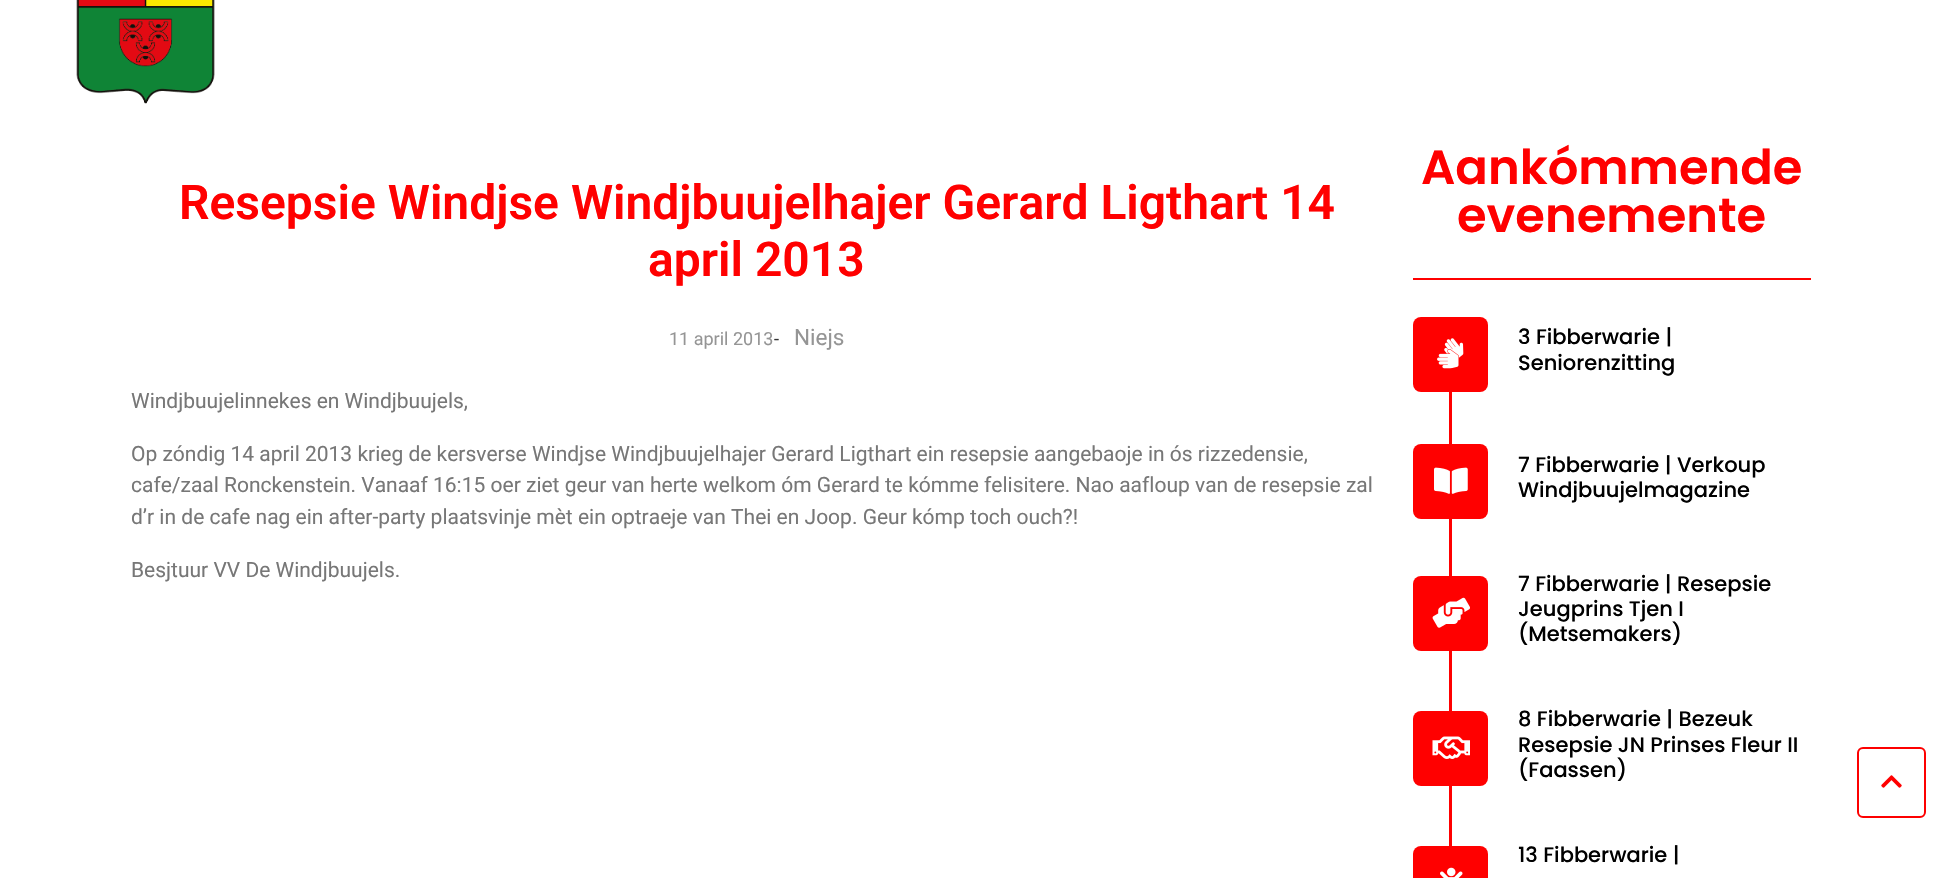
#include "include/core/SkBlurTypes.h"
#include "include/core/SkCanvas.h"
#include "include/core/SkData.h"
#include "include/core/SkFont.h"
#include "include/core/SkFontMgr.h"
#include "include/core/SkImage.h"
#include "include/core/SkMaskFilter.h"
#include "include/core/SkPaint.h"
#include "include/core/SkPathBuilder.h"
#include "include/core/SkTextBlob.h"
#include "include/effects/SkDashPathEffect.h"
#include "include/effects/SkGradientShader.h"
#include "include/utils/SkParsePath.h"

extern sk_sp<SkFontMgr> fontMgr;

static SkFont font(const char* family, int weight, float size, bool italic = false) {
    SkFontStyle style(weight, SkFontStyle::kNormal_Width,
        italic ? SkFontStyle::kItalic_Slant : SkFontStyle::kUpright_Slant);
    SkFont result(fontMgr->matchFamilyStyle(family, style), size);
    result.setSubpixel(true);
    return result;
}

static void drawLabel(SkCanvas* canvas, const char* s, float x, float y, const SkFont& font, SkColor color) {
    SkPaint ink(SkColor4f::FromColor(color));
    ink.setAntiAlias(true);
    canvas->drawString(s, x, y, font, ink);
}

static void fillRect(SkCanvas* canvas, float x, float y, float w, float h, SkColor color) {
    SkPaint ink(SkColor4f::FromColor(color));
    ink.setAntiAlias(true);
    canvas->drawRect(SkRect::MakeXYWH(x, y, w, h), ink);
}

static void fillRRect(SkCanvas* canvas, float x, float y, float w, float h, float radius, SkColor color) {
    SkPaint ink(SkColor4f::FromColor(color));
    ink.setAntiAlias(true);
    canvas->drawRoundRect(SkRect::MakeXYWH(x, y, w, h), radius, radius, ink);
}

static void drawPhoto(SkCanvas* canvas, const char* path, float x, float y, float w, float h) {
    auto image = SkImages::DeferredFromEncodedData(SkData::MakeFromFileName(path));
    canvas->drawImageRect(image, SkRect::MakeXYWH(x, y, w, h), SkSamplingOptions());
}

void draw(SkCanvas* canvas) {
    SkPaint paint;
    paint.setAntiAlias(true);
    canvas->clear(0xFFFFFFFF);
    drawPhoto(canvas, "assets/img1.png", 76, 0, 139, 104);
    SkFont font1 = font("Roboto", 600, 48);
    drawLabel(canvas, "Resepsie Windjse Windjbuujelhajer Gerard Ligthart 14", 179, 219, font1, 0xFFFF0000);
    drawLabel(canvas, "april 2013", 648, 276, font1, 0xFFFF0000);
    SkFont font2 = font("Roboto", 400, 18);
    drawLabel(canvas, "11 april 2013", 669, 345, font2, 0xFF959595);
    drawLabel(canvas, "-", 774, 345, font2, 0xFF333333);
    SkFont font3 = font("Roboto", 400, 22.5f);
    drawLabel(canvas, "Niejs", 794, 345, font3, 0xFF959595);
    SkFont font4 = font("Roboto", 400, 21);
    drawLabel(canvas, "Windjbuujelinnekes en Windjbuujels,", 131, 408, font4, 0xFF777777);
    drawLabel(canvas, "Op zóndig 14 april 2013 krieg de kersverse Windjse Windjbuujelhajer Gerard Ligthart ein resepsie aangebaoje in ós rizzedensie,", 131, 461, font4, 0xFF777777);
    drawLabel(canvas, "cafe/zaal Ronckenstein. Vanaaf 16:15 oer ziet geur van herte welkom óm Gerard te kómme felisitere. Nao aafloup van de resepsie zal", 131, 492, font4, 0xFF777777);
    drawLabel(canvas, "d’r in de cafe nag ein after-party plaatsvinje mèt ein optraeje van Thei en Joop. Geur kómp toch ouch?!", 131, 524, font4, 0xFF777777);
    drawLabel(canvas, "Besjtuur VV De Windjbuujels.", 131, 577, font4, 0xFF777777);
    SkFont font5 = font("Poppins", 600, 48);
    drawLabel(canvas, "Aankómmende", 1421, 184, font5, 0xFFFF0000);
    drawLabel(canvas, "evenemente", 1457, 232, font5, 0xFFFF0000);
    fillRect(canvas, 1413, 278, 398, 2, 0xFFFF0000);
    fillRRect(canvas, 1413, 317, 75, 75, 8, 0xFFFF0000);
    drawPhoto(canvas, "assets/img2.png", 1437, 338, 27, 31);
    fillRect(canvas, 1449, 392, 3, 52, 0xFFFF0000);
    SkFont font6 = font("Poppins", 500, 21);
    drawLabel(canvas, "3 Fibberwarie |", 1518, 344, font6, 0xFF000000);
    drawLabel(canvas, "Seniorenzitting", 1518, 370, font6, 0xFF000000);
    fillRRect(canvas, 1413, 444, 75, 75, 8, 0xFFFF0000);
    drawPhoto(canvas, "assets/img3.png", 1434, 467, 34, 27);
    fillRect(canvas, 1449, 519, 3, 57, 0xFFFF0000);
    drawLabel(canvas, "7 Fibberwarie | Verkoup", 1518, 472, font6, 0xFF000000);
    drawLabel(canvas, "Windjbuujelmagazine", 1518, 497, font6, 0xFF000000);
    fillRRect(canvas, 1413, 576, 75, 75, 8, 0xFFFF0000);
    drawPhoto(canvas, "assets/img4.png", 1432, 597, 38, 31);
    fillRect(canvas, 1449, 651, 3, 60, 0xFFFF0000);
    drawLabel(canvas, "7 Fibberwarie | Resepsie", 1518, 591, font6, 0xFF000000);
    drawLabel(canvas, "Jeugprins Tjen I", 1518, 616, font6, 0xFF000000);
    drawLabel(canvas, "(Metsemakers)", 1518, 641, font6, 0xFF000000);
    fillRRect(canvas, 1413, 711, 75, 75, 8, 0xFFFF0000);
    drawPhoto(canvas, "assets/img5.png", 1432, 736, 38, 23);
    fillRect(canvas, 1449, 786, 3, 60, 0xFFFF0000);
    drawLabel(canvas, "8 Fibberwarie | Bezeuk", 1518, 726, font6, 0xFF000000);
    drawLabel(canvas, "Resepsie JN Prinses Fleur II", 1518, 752, font6, 0xFF000000);
    drawLabel(canvas, "(Faassen)", 1518, 777, font6, 0xFF000000);
    fillRRect(canvas, 1413, 846, 75, 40, 8, 0xFFFF0000);
    drawPhoto(canvas, "assets/img6.png", 1440, 867, 23, 11);
    drawLabel(canvas, "13 Fibberwarie |", 1518, 862, font6, 0xFF000000);
    paint.setStroke(true);
    paint.setStrokeWidth(2);
    paint.setColor(0xFFFD0000);
    canvas->drawRoundRect(SkRect::MakeXYWH(1858, 748, 67, 69), 5, 5, paint);
    drawPhoto(canvas, "assets/img7.png", 1881, 775, 21, 13);
}
